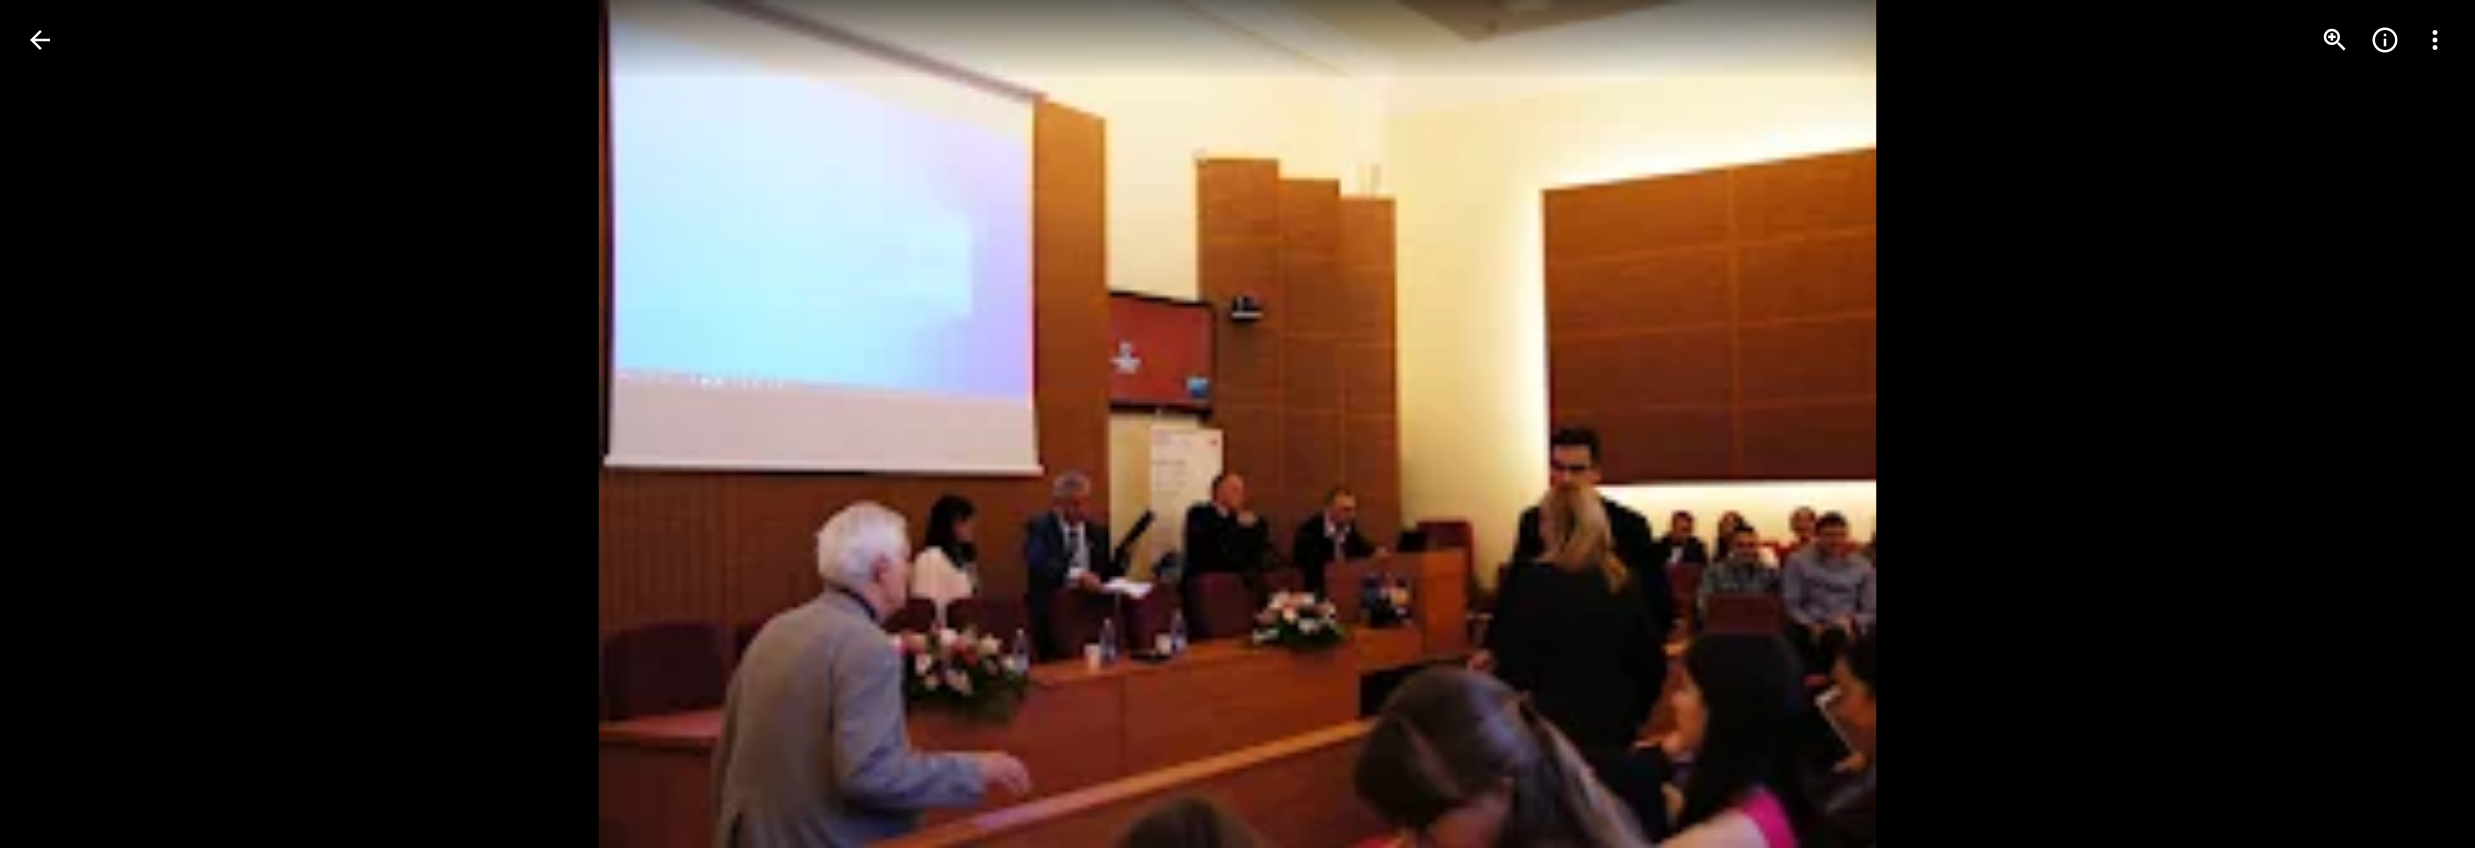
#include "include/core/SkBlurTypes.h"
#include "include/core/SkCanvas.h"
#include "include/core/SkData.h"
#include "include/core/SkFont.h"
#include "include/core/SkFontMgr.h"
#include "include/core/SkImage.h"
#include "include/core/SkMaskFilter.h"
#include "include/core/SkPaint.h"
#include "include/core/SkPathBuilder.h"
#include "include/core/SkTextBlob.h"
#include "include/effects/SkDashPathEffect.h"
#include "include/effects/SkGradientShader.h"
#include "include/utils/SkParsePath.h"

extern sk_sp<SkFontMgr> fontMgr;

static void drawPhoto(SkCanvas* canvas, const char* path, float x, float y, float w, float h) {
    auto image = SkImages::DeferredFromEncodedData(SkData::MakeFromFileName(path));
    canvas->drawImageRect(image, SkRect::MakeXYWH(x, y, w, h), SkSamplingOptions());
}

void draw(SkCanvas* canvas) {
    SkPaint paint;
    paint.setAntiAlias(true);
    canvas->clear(0xFF000000);
    drawPhoto(canvas, "assets/img5.png", 598, 0, 1279, 848);
    {
        const SkColor colors[] = {0x99000000, 0x00000000};
        const float stops[] = {0, 1};
        const SkPoint ends[] = {{1238, 0}, {1238, 80}};
        paint.setShader(SkGradientShader::MakeLinear(ends, colors, stops, 2, SkTileMode::kClamp));
        paint.setAlpha(255);
    }
    canvas->drawRect(SkRect::MakeXYWH(598, 0, 1279, 77), paint);
    drawPhoto(canvas, "assets/img1.png", 30, 30, 20, 20);
    drawPhoto(canvas, "assets/img2.png", 2323, 28, 23, 23);
    drawPhoto(canvas, "assets/img3.png", 2372, 27, 26, 26);
    drawPhoto(canvas, "assets/img4.png", 2432, 30, 6, 20);
}
